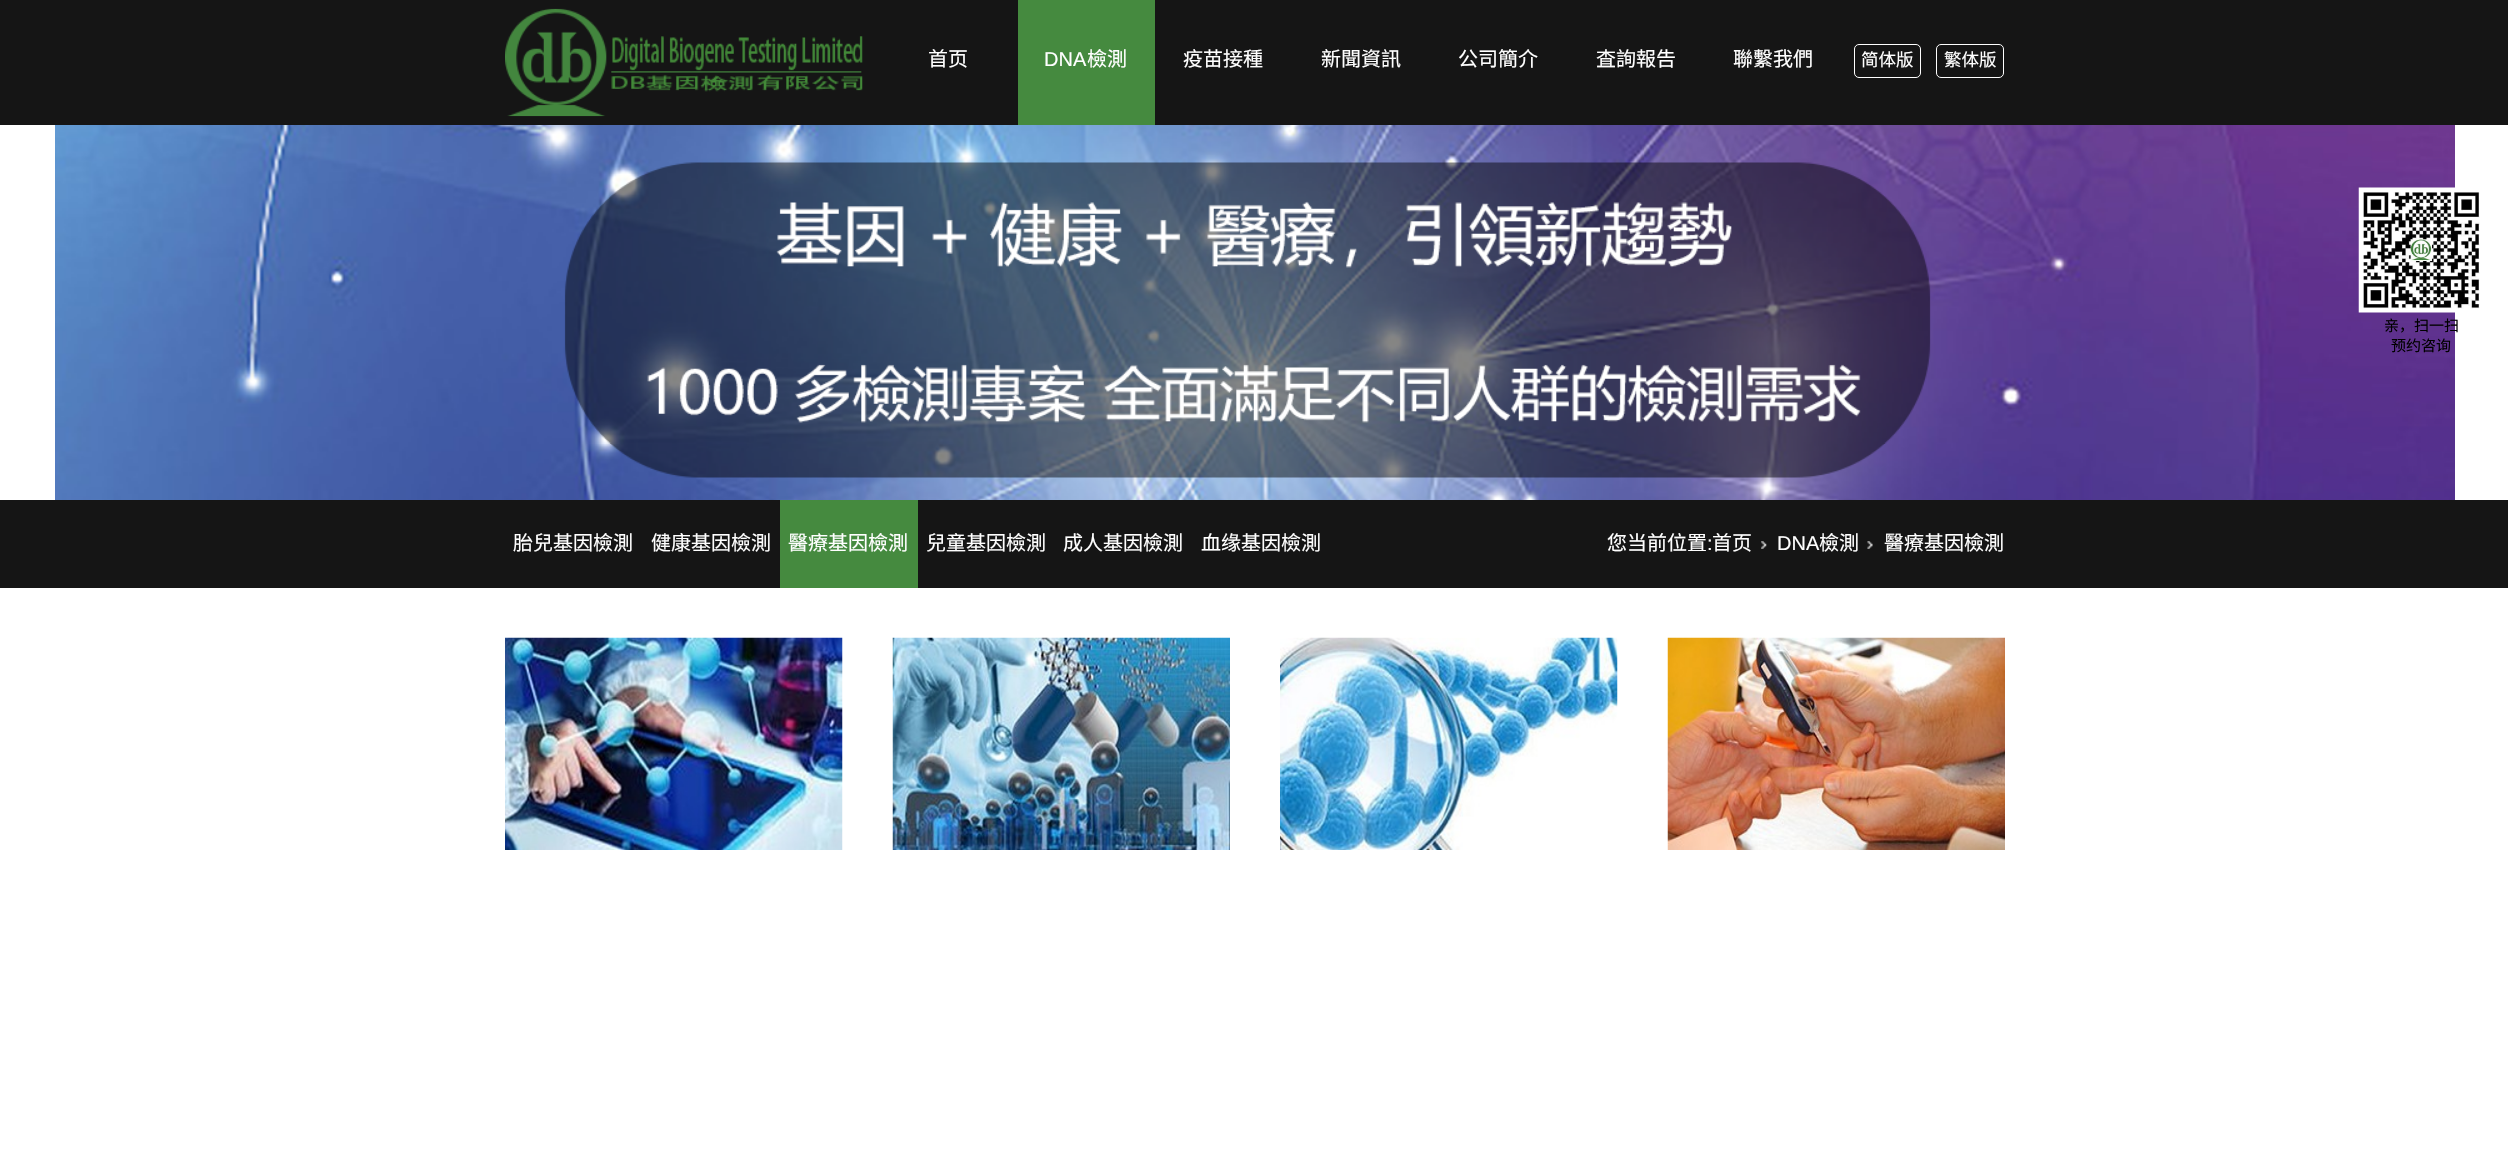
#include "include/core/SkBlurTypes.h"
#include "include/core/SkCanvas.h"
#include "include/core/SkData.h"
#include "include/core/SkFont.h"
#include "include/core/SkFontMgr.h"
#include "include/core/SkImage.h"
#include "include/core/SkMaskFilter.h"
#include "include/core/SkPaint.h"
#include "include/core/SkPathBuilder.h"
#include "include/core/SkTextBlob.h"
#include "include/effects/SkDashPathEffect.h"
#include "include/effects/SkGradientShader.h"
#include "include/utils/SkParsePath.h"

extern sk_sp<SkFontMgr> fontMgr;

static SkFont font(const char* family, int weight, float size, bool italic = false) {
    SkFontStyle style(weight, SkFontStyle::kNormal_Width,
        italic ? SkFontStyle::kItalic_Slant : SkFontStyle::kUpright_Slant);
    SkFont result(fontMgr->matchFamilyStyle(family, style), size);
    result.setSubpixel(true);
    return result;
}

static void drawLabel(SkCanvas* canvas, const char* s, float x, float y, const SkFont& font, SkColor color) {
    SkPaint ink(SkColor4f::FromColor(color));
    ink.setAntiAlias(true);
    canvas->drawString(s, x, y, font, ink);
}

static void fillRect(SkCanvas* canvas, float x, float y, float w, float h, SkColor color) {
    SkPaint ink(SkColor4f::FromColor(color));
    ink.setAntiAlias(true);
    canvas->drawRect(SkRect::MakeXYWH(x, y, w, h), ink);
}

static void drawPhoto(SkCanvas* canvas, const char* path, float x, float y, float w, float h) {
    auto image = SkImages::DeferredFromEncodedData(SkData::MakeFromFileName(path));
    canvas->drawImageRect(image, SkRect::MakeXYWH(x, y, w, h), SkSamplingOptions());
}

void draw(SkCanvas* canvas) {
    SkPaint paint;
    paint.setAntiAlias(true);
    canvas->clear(0xFFFFFFFF);
    fillRect(canvas, 0, 0, 2508, 125, 0xFF151515);
    drawPhoto(canvas, "assets/img1.png", 505, 8, 358, 109);
    SkFont font1 = font("Noto Sans CJK SC", 400, 20);
    drawLabel(canvas, "首页", 928, 66, font1, 0xFFFFFFFF);
    fillRect(canvas, 1018, 0, 137, 125, 0xFF458A3F);
    SkFont font2 = font("Liberation Sans", 400, 20);
    drawLabel(canvas, "DNA", 1044, 66, font2, 0xFFFFFFFF);
    drawLabel(canvas, "檢測", 1087, 66, font1, 0xFFFFFFFF);
    drawLabel(canvas, "疫苗接種", 1183, 66, font1, 0xFFFFFFFF);
    drawLabel(canvas, "新聞資訊", 1321, 66, font1, 0xFFFFFFFF);
    drawLabel(canvas, "公司簡介", 1458, 66, font1, 0xFFFFFFFF);
    drawLabel(canvas, "査詢報告", 1596, 66, font1, 0xFFFFFFFF);
    drawLabel(canvas, "聯繫我們", 1733, 66, font1, 0xFFFFFFFF);
    paint.setStroke(true);
    paint.setStrokeWidth(1);
    paint.setColor(0xFFFFFFFF);
    canvas->drawRoundRect(SkRect::MakeXYWH(1854.5f, 44.5f, 66, 33), 4.5f, 4.5f, paint);
    SkFont font3 = font("Noto Sans CJK SC", 400, 17.5f);
    drawLabel(canvas, "简体版", 1861, 66, font3, 0xFFFFFFFF);
    canvas->drawRoundRect(SkRect::MakeXYWH(1936.5f, 44.5f, 67, 33), 4.5f, 4.5f, paint);
    drawLabel(canvas, "繁体版", 1944, 66, font3, 0xFFFFFFFF);
    drawPhoto(canvas, "assets/img2.png", 55, 125, 2400, 375);
    drawPhoto(canvas, "assets/img3.png", 2358, 187, 122, 126);
    SkFont font4 = font("Noto Sans CJK SC", 400, 15);
    drawLabel(canvas, "亲，扫一扫", 2384, 331, font4, 0xFF000000);
    drawLabel(canvas, "预约咨询", 2391, 351, font4, 0xFF000000);
    fillRect(canvas, 0, 500, 2508, 88, 0xFF151515);
    drawLabel(canvas, "胎兒基因檢測", 513, 550, font1, 0xFFFFFFFF);
    drawLabel(canvas, "健康基因檢測", 651, 550, font1, 0xFFFFFFFF);
    fillRect(canvas, 780, 500, 138, 88, 0xFF458A3F);
    drawLabel(canvas, "醫療基因檢測", 788, 550, font1, 0xFFFFFFFF);
    drawLabel(canvas, "兒童基因檢測", 926, 550, font1, 0xFFFFFFFF);
    drawLabel(canvas, "成人基因檢測", 1063, 550, font1, 0xFFFFFFFF);
    drawLabel(canvas, "血缘基因檢測", 1201, 550, font1, 0xFFFFFFFF);
    drawLabel(canvas, "您当前位置", 1607, 550, font1, 0xFFFFFFFF);
    drawLabel(canvas, ":", 1707, 550, font2, 0xFFFFFFFF);
    drawLabel(canvas, "首页", 1712, 550, font1, 0xFFFFFFFF);
    drawPhoto(canvas, "assets/img4.png", 1761, 541, 6, 8);
    drawLabel(canvas, "DNA", 1777, 550, font2, 0xFFFFFFFF);
    drawLabel(canvas, "檢測", 1819, 550, font1, 0xFFFFFFFF);
    drawPhoto(canvas, "assets/img5.png", 1867, 541, 6, 8);
    drawLabel(canvas, "醫療基因檢測", 1884, 550, font1, 0xFFFFFFFF);
    drawPhoto(canvas, "assets/img6.png", 505, 637, 338, 213);
    drawPhoto(canvas, "assets/img7.png", 892, 637, 338, 213);
    drawPhoto(canvas, "assets/img8.png", 1280, 637, 338, 213);
    drawPhoto(canvas, "assets/img9.png", 1667, 637, 338, 213);
}
